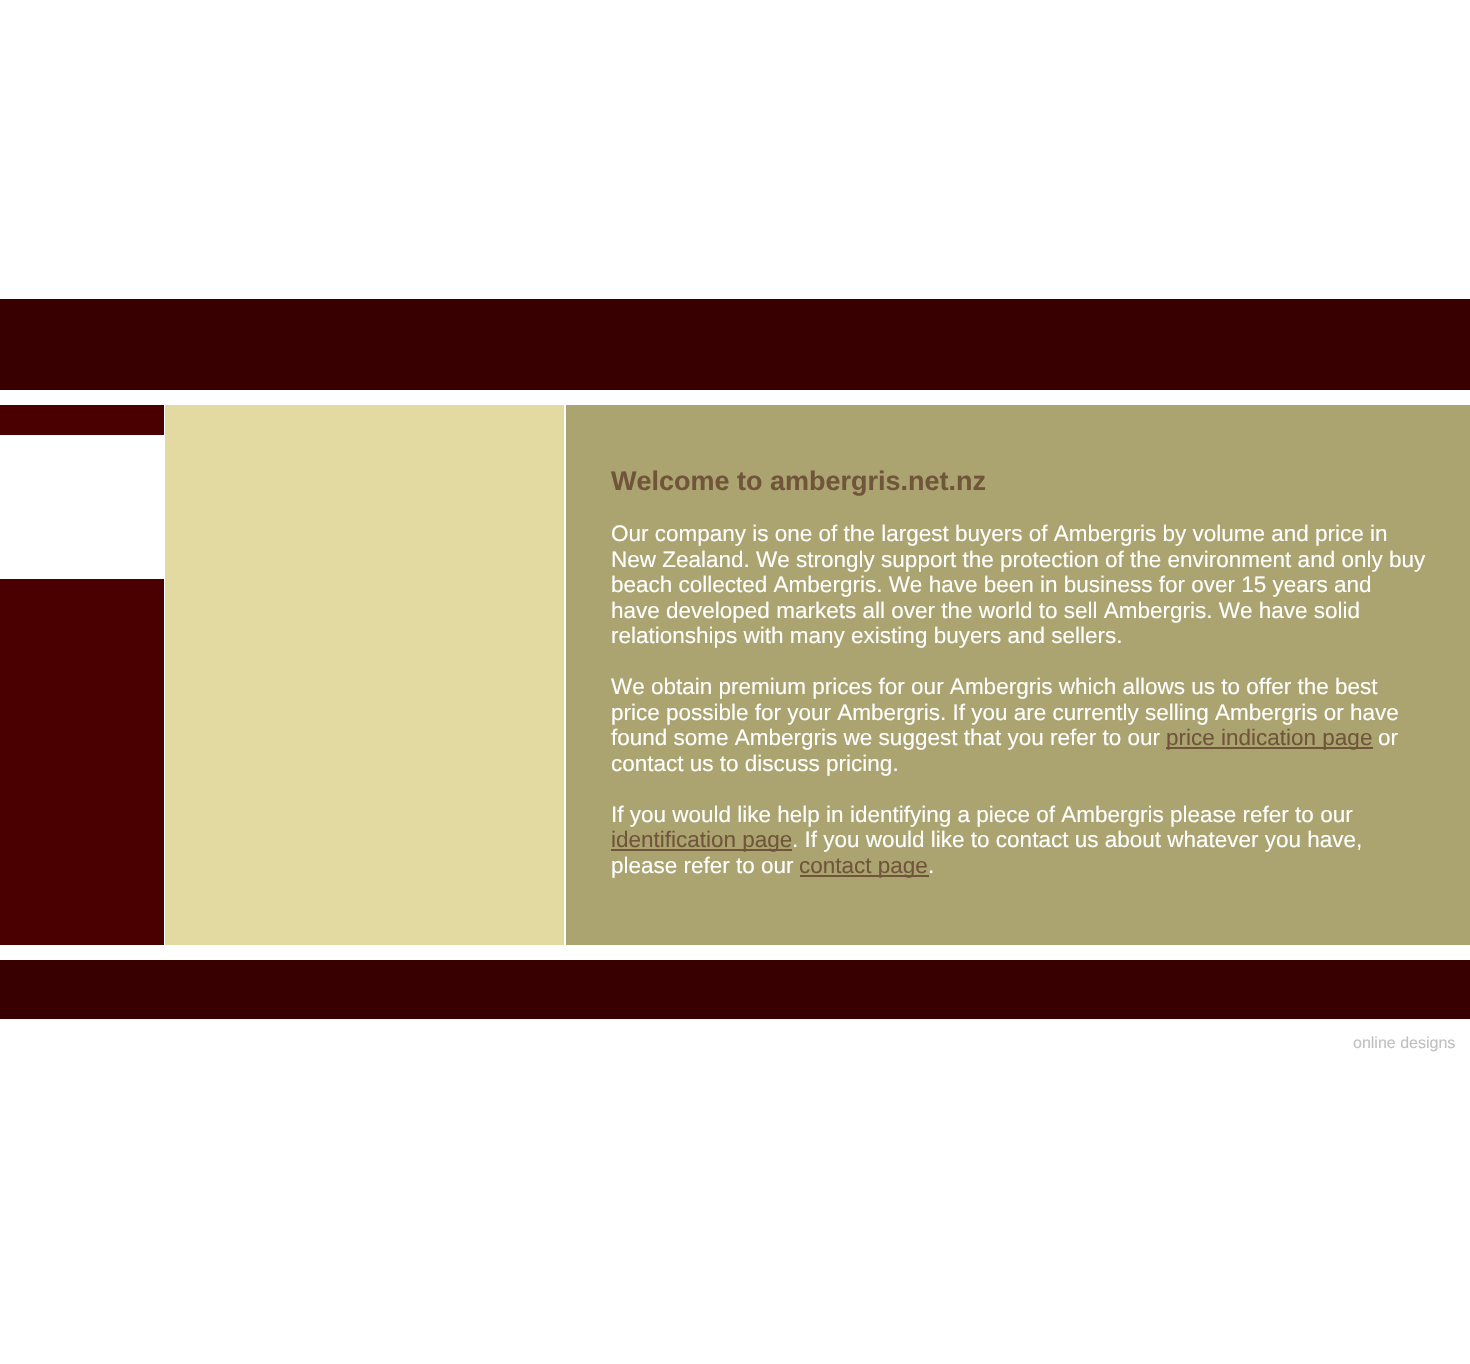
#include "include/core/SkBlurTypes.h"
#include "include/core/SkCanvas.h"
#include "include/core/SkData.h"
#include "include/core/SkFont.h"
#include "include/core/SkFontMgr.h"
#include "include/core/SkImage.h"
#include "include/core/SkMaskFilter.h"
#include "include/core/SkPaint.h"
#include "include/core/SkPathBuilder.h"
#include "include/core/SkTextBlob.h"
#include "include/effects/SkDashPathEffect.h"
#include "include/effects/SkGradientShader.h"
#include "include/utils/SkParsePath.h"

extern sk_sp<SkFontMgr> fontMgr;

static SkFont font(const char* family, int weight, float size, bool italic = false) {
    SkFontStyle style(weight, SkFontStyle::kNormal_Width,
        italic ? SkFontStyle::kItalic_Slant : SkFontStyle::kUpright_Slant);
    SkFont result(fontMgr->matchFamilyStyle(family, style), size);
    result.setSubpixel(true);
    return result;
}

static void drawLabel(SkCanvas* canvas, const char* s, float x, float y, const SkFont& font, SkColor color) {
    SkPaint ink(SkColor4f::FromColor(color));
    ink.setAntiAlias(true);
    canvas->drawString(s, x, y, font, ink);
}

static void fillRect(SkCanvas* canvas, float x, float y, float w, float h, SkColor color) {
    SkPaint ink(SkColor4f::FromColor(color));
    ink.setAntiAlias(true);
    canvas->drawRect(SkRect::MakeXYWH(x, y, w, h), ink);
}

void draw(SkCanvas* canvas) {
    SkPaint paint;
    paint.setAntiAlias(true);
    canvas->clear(0xFFFFFFFF);
    fillRect(canvas, 0, 299, 1470, 91, 0xFF390000);
    fillRect(canvas, 566, 405, 904, 540, 0xFFABA370);
    fillRect(canvas, 0, 405, 164, 540, 0xFF4A0000);
    fillRect(canvas, 0, 435, 164, 144, 0xFFFFFFFF);
    fillRect(canvas, 165, 405, 399, 540, 0xFFE3DAA1);
    SkFont font1 = font("Liberation Sans", 700, 27);
    drawLabel(canvas, "Welcome to ambergris.net.nz", 611, 490, font1, 0xFF70553A);
    SkFont font2 = font("Liberation Sans", 400, 22.5f);
    drawLabel(canvas, "Our company is one of the largest buyers of Ambergris by volume and price in", 611, 541, font2, 0xFFFFFFFF);
    drawLabel(canvas, "New Zealand. We strongly support the protection of the environment and only buy", 611, 567, font2, 0xFFFFFFFF);
    drawLabel(canvas, "beach collected Ambergris. We have been in business for over 15 years and", 611, 592, font2, 0xFFFFFFFF);
    drawLabel(canvas, "have developed markets all over the world to sell Ambergris. We have solid", 611, 618, font2, 0xFFFFFFFF);
    drawLabel(canvas, "relationships with many existing buyers and sellers.", 611, 643, font2, 0xFFFFFFFF);
    drawLabel(canvas, "We obtain premium prices for our Ambergris which allows us to offer the best", 611, 694, font2, 0xFFFFFFFF);
    drawLabel(canvas, "price possible for your Ambergris. If you are currently selling Ambergris or have", 611, 720, font2, 0xFFFFFFFF);
    drawLabel(canvas, "found some Ambergris we suggest that you refer to our", 611, 745, font2, 0xFFFFFFFF);
    fillRect(canvas, 1166, 747, 207, 2, 0xFF70553A);
    drawLabel(canvas, "price indication page", 1166, 745, font2, 0xFF70553A);
    drawLabel(canvas, "or", 1378, 745, font2, 0xFFFFFFFF);
    drawLabel(canvas, "contact us to discuss pricing.", 611, 771, font2, 0xFFFFFFFF);
    drawLabel(canvas, "If you would like help in identifying a piece of Ambergris please refer to our", 611, 822, font2, 0xFFFFFFFF);
    fillRect(canvas, 611, 849, 181, 2, 0xFF70553A);
    drawLabel(canvas, "identification page", 611, 847, font2, 0xFF70553A);
    drawLabel(canvas, ". If you would like to contact us about whatever you have,", 792, 847, font2, 0xFFFFFFFF);
    drawLabel(canvas, "please refer to our", 611, 873, font2, 0xFFFFFFFF);
    fillRect(canvas, 800, 875, 129, 2, 0xFF70553A);
    drawLabel(canvas, "contact page", 799, 873, font2, 0xFF70553A);
    drawLabel(canvas, ".", 928, 873, font2, 0xFFFFFFFF);
    fillRect(canvas, 0, 960, 1470, 59, 0xFF390000);
    SkFont font3 = font("Liberation Sans", 400, 16);
    drawLabel(canvas, "online designs", 1353, 1048, font3, 0xFFC0C0C0);
}
